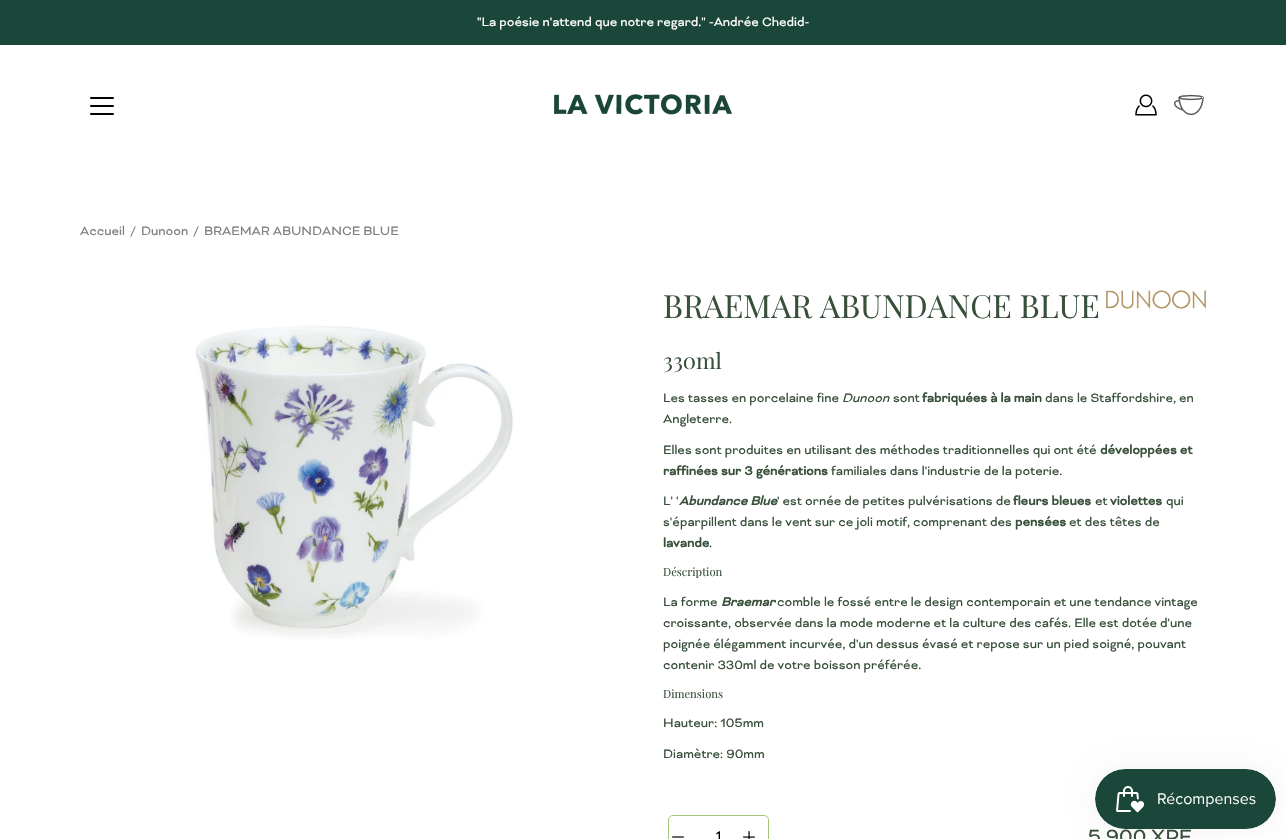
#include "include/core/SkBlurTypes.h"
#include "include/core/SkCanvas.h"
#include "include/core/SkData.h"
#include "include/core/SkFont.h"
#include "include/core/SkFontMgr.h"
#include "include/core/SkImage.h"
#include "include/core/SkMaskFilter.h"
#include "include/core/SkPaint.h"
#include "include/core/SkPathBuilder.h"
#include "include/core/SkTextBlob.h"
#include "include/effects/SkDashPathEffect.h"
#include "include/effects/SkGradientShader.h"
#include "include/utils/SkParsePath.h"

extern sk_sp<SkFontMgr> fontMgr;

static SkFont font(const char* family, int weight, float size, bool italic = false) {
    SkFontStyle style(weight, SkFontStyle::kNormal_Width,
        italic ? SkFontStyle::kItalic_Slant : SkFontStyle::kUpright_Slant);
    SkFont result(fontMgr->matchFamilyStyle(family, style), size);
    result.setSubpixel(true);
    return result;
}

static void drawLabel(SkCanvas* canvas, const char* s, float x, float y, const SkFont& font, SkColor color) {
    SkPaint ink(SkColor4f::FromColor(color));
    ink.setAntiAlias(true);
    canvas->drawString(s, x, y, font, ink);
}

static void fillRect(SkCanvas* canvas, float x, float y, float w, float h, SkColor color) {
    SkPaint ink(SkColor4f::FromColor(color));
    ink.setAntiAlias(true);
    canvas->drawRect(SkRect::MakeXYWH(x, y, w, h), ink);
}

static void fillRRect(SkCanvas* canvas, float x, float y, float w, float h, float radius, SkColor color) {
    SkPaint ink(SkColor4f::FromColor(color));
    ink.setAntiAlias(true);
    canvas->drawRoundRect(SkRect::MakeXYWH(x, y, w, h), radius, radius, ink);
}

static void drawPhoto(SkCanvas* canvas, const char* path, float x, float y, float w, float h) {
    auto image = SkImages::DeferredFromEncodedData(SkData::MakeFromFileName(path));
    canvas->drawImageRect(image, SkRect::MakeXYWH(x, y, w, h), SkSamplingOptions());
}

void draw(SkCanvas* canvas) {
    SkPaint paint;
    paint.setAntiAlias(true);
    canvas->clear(0xFFFFFFFF);
    fillRect(canvas, 0, 0, 1286, 45, 0xFF1B463A);
    SkFont font1 = font("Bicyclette", 400, 14);
    drawLabel(canvas, "\"La poésie n'attend que notre regard.\" -Andrée Chedid-", 477, 26, font1, 0xFFFFFFFF);
    fillRRect(canvas, 90, 105, 24, 2, 1, 0xFF000000);
    fillRRect(canvas, 90, 97, 24, 2, 1, 0xFF000000);
    fillRRect(canvas, 90, 113, 24, 2, 1, 0xFF000000);
    drawPhoto(canvas, "assets/img1.png", 1135, 94, 22, 22);
    drawPhoto(canvas, "assets/img2.png", 1174, 94, 30, 22);
    drawPhoto(canvas, "assets/img3.png", 554, 94, 178, 21);
    drawLabel(canvas, "Accueil", 80, 235, font1, 0xFF808080);
    drawLabel(canvas, "/", 130, 235, font1, 0xFF808080);
    drawLabel(canvas, "Dunoon", 141, 235, font1, 0xFF808080);
    drawLabel(canvas, "/", 193, 235, font1, 0xFF808080);
    drawLabel(canvas, "BRAEMAR ABUNDANCE BLUE", 204, 235, font1, 0xFF808080);
    drawPhoto(canvas, "assets/img4.png", 195, 325, 319, 315);
    SkFont font2 = font("Playfair Display", 400, 32);
    drawLabel(canvas, "BRAEMAR ABUNDANCE BLUE", 663, 318, font2, 0xFF38503A);
    drawPhoto(canvas, "assets/img5.png", 1106, 290, 100, 22);
    SkFont font3 = font("Playfair Display", 400, 22);
    drawLabel(canvas, "330ml", 663, 369, font3, 0xFF38503A);
    drawLabel(canvas, "Les tasses en porcelaine fine", 663, 402, font1, 0xFF38503A);
    SkFont font4 = font("Bicyclette", 400, 14, true);
    drawLabel(canvas, "Dunoon", 842, 402, font4, 0xFF38503A);
    drawLabel(canvas, "sont", 893, 402, font1, 0xFF38503A);
    SkFont font5 = font("Bicyclette", 700, 14);
    drawLabel(canvas, "fabriquées à la main", 922, 402, font5, 0xFF38503A);
    drawLabel(canvas, "dans le Staffordshire, en", 1045, 402, font1, 0xFF38503A);
    drawLabel(canvas, "Angleterre.", 663, 423, font1, 0xFF38503A);
    drawLabel(canvas, "Elles sont produites en utilisant des méthodes traditionnelles qui ont été", 663, 454, font1, 0xFF38503A);
    drawLabel(canvas, "développées et", 1100, 454, font5, 0xFF38503A);
    drawLabel(canvas, "raffinées sur 3 générations", 663, 475, font5, 0xFF38503A);
    drawLabel(canvas, "familiales dans l'industrie de la poterie.", 831, 475, font1, 0xFF38503A);
    drawLabel(canvas, "L' '", 663, 505, font1, 0xFF38503A);
    SkFont font6 = font("Bicyclette", 700, 14, true);
    drawLabel(canvas, "Abundance Blue", 679, 505, font6, 0xFF38503A);
    drawLabel(canvas, "' est ornée de petites pulvérisations de", 777, 505, font1, 0xFF38503A);
    drawLabel(canvas, "fleurs bleues", 1013, 505, font5, 0xFF38503A);
    drawLabel(canvas, "et", 1095, 505, font1, 0xFF38503A);
    drawLabel(canvas, "violettes", 1110, 505, font5, 0xFF38503A);
    drawLabel(canvas, "qui", 1166, 505, font1, 0xFF38503A);
    drawLabel(canvas, "s'éparpillent dans le vent sur ce joli motif, comprenant des", 663, 526, font1, 0xFF38503A);
    drawLabel(canvas, "pensées", 1015, 526, font5, 0xFF38503A);
    drawLabel(canvas, "et des têtes de", 1069, 526, font1, 0xFF38503A);
    drawLabel(canvas, "lavande", 663, 547, font5, 0xFF38503A);
    drawLabel(canvas, ".", 709, 547, font1, 0xFF38503A);
    SkFont font7 = font("Playfair Display", 400, 11.25f);
    drawLabel(canvas, "Déscription", 663, 576, font7, 0xFF38503A);
    drawLabel(canvas, "La forme", 663, 606, font1, 0xFF38503A);
    drawLabel(canvas, "Braemar", 721, 606, font6, 0xFF38503A);
    drawLabel(canvas, "comble le fossé entre le design contemporain et une tendance vintage", 777, 606, font1, 0xFF38503A);
    drawLabel(canvas, "croissante, observée dans la mode moderne et la culture des cafés. Elle est dotée d'une", 663, 627, font1, 0xFF38503A);
    drawLabel(canvas, "poignée élégamment incurvée, d'un dessus évasé et repose sur un pied soigné, pouvant", 663, 648, font1, 0xFF38503A);
    drawLabel(canvas, "contenir 330ml de votre boisson préférée.", 663, 669, font1, 0xFF38503A);
    drawLabel(canvas, "Dimensions", 663, 698, font7, 0xFF38503A);
    drawLabel(canvas, "Hauteur: 105mm", 663, 727, font1, 0xFF38503A);
    drawLabel(canvas, "Diamètre: 90mm", 663, 758, font1, 0xFF38503A);
    paint.setStroke(true);
    paint.setStrokeWidth(1);
    paint.setColor(0xFFA7C675);
    canvas->drawRoundRect(SkRect::MakeXYWH(668.5f, 815.5f, 100, 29), 4.5f, 4.5f, paint);
    drawPhoto(canvas, "assets/img6.png", 672, 836, 12, 2);
    SkFont font8 = font("Arvo", 400, 14);
    drawLabel(canvas, "1", 716, 842, font8, 0xFF000000);
    drawPhoto(canvas, "assets/img7.png", 743, 831, 12, 8);
    SkFont font9 = font("Bicyclette", 400, 22);
    drawLabel(canvas, "5 900 XPF", 1088, 843, font9, 0xFF38503A);
    paint.setStroke(false);
    paint.setColor(0x0D000000);
    paint.setMaskFilter(SkMaskFilter::MakeBlur(kNormal_SkBlurStyle, 12.5f));
    canvas->drawRoundRect(SkRect::MakeXYWH(1095, 769, 181, 60), 30, 30, paint);
    paint.setMaskFilter(nullptr);
    drawPhoto(canvas, "assets/img8.png", 1095, 769, 181, 60);
}
